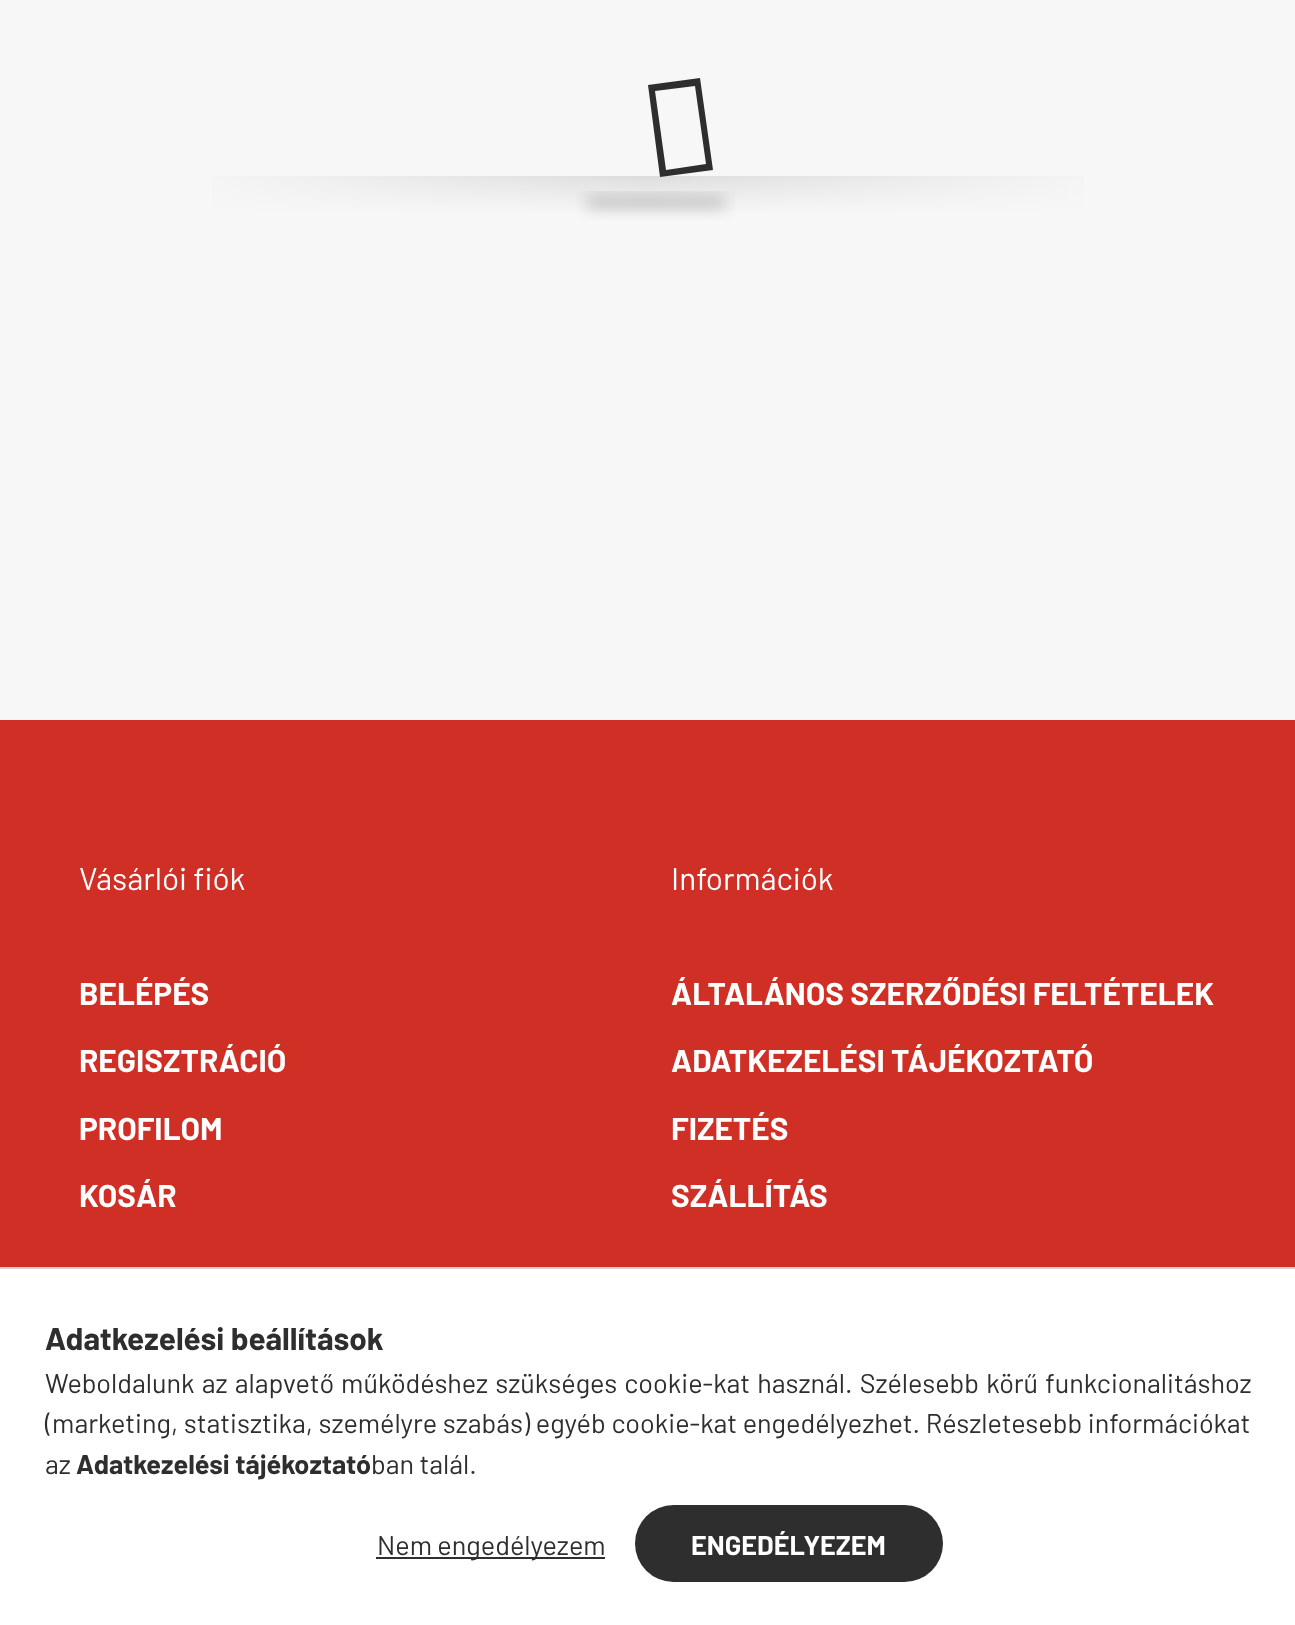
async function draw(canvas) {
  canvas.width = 1295
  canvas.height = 1625
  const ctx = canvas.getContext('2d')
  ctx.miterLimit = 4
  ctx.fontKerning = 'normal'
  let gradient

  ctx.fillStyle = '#f7f7f7'
  ctx.fillRect(0, 0, 1295, 1625)
  gradient = ctx.createLinearGradient(45, 195, 1251, 195)
  gradient.addColorStop(0.1, '#f7f7f7')
  gradient.addColorStop(0.5, '#ddd')
  gradient.addColorStop(0.9, '#f7f7f7')
  ctx.fillStyle = gradient
  ctx.fillRect(212, 176, 872, 38)
  gradient = ctx.createLinearGradient(648, 214, 648, 176)
  gradient.addColorStop(0, '#f7f7f7')
  gradient.addColorStop(1, '#f7f7f700')
  ctx.fillStyle = gradient
  ctx.fillRect(212, 179, 872, 35)
  ctx.save()
  ctx.beginPath()
  ctx.rect(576, 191, 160, 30)
  ctx.clip()
  ctx.fillStyle = '#808080'
  ctx.filter = 'blur(8px)'
  ctx.beginPath()
  ctx.rect(587, 200, 138, 5)
  ctx.fill()
  ctx.filter = 'none'
  ctx.restore()
  ctx.fillStyle = '#2e2e2e'
  ctx.beginPath()
  ctx.moveTo(700, 78)
  ctx.lineTo(713, 170)
  ctx.lineTo(660, 177)
  ctx.lineTo(648, 85)
  ctx.closePath()
  ctx.moveTo(695, 86)
  ctx.lineTo(655, 91)
  ctx.lineTo(666, 170)
  ctx.lineTo(706, 164)
  ctx.closePath()
  ctx.fill()
  ctx.fillStyle = '#d02f26'
  ctx.fillRect(0, 720, 1295, 547)
  ctx.font = '31.5px Barlow'
  ctx.fillStyle = '#fff'
  ctx.fillText('Vásárlói fiók', 79, 890)
  ctx.font = 'bold 31.5px Barlow'
  ctx.fillText('BELÉPÉS', 79, 1005)
  ctx.fillText('REGISZTRÁCIÓ', 79, 1072)
  ctx.fillText('PROFILOM', 79, 1140)
  ctx.fillText('KOSÁR', 79, 1207)
  ctx.font = '31.5px Barlow'
  ctx.fillText('Információk', 671, 890)
  ctx.font = 'bold 31.5px Barlow'
  ctx.fillText('ÁLTALÁNOS SZERZŐDÉSI FELTÉTELEK', 671, 1005)
  ctx.fillText('ADATKEZELÉSI TÁJÉKOZTATÓ', 671, 1072)
  ctx.fillText('FIZETÉS', 671, 1140)
  ctx.fillText('SZÁLLÍTÁS', 671, 1207)
  ctx.fillRect(0, 1269, 1295, 356)
  ctx.fillStyle = '#d1d1d1'
  ctx.fillRect(0, 1267, 1295, 2)
  ctx.fillStyle = '#2e2e2e'
  ctx.fillText('Adatkezelési beállítások', 45, 1350)
  ctx.wordSpacing = '1.75px'
  ctx.font = '27px Barlow'
  ctx.fillText('Weboldalunk az alapvető működéshez szükséges cookie-kat használ. Szélesebb körű funkcionalitáshoz', 45, 1393)
  ctx.wordSpacing = '0.25px'
  ctx.fillText('(marketing, statisztika, személyre szabás) egyéb cookie-kat engedélyezhet. Részletesebb információkat', 45, 1433)
  ctx.wordSpacing = '0px'
  ctx.fillText('az', 45, 1474)
  ctx.font = 'bold 27px Barlow'
  ctx.fillText('Adatkezelési tájékoztató', 76, 1474)
  ctx.font = '27px Barlow'
  ctx.fillText('ban talál.', 371, 1474)
  ctx.fillRect(376, 1557, 229, 2)
  ctx.fillText('Nem engedélyezem', 377, 1555)
  gradient = ctx.createLinearGradient(635, 1544, 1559, 1544)
  gradient.addColorStop(0.33, '#2e2e2e')
  gradient.addColorStop(0.67, '#fa6469')
  ctx.fillStyle = gradient
  ctx.beginPath()
  ctx.roundRect(635, 1505, 308, 77, 38.5)
  ctx.fill()
  ctx.font = 'bold 27px Barlow'
  ctx.fillStyle = '#fff'
  ctx.fillText('ENGEDÉLYEZEM', 691, 1555)
}

draw(document.querySelector('canvas'))
